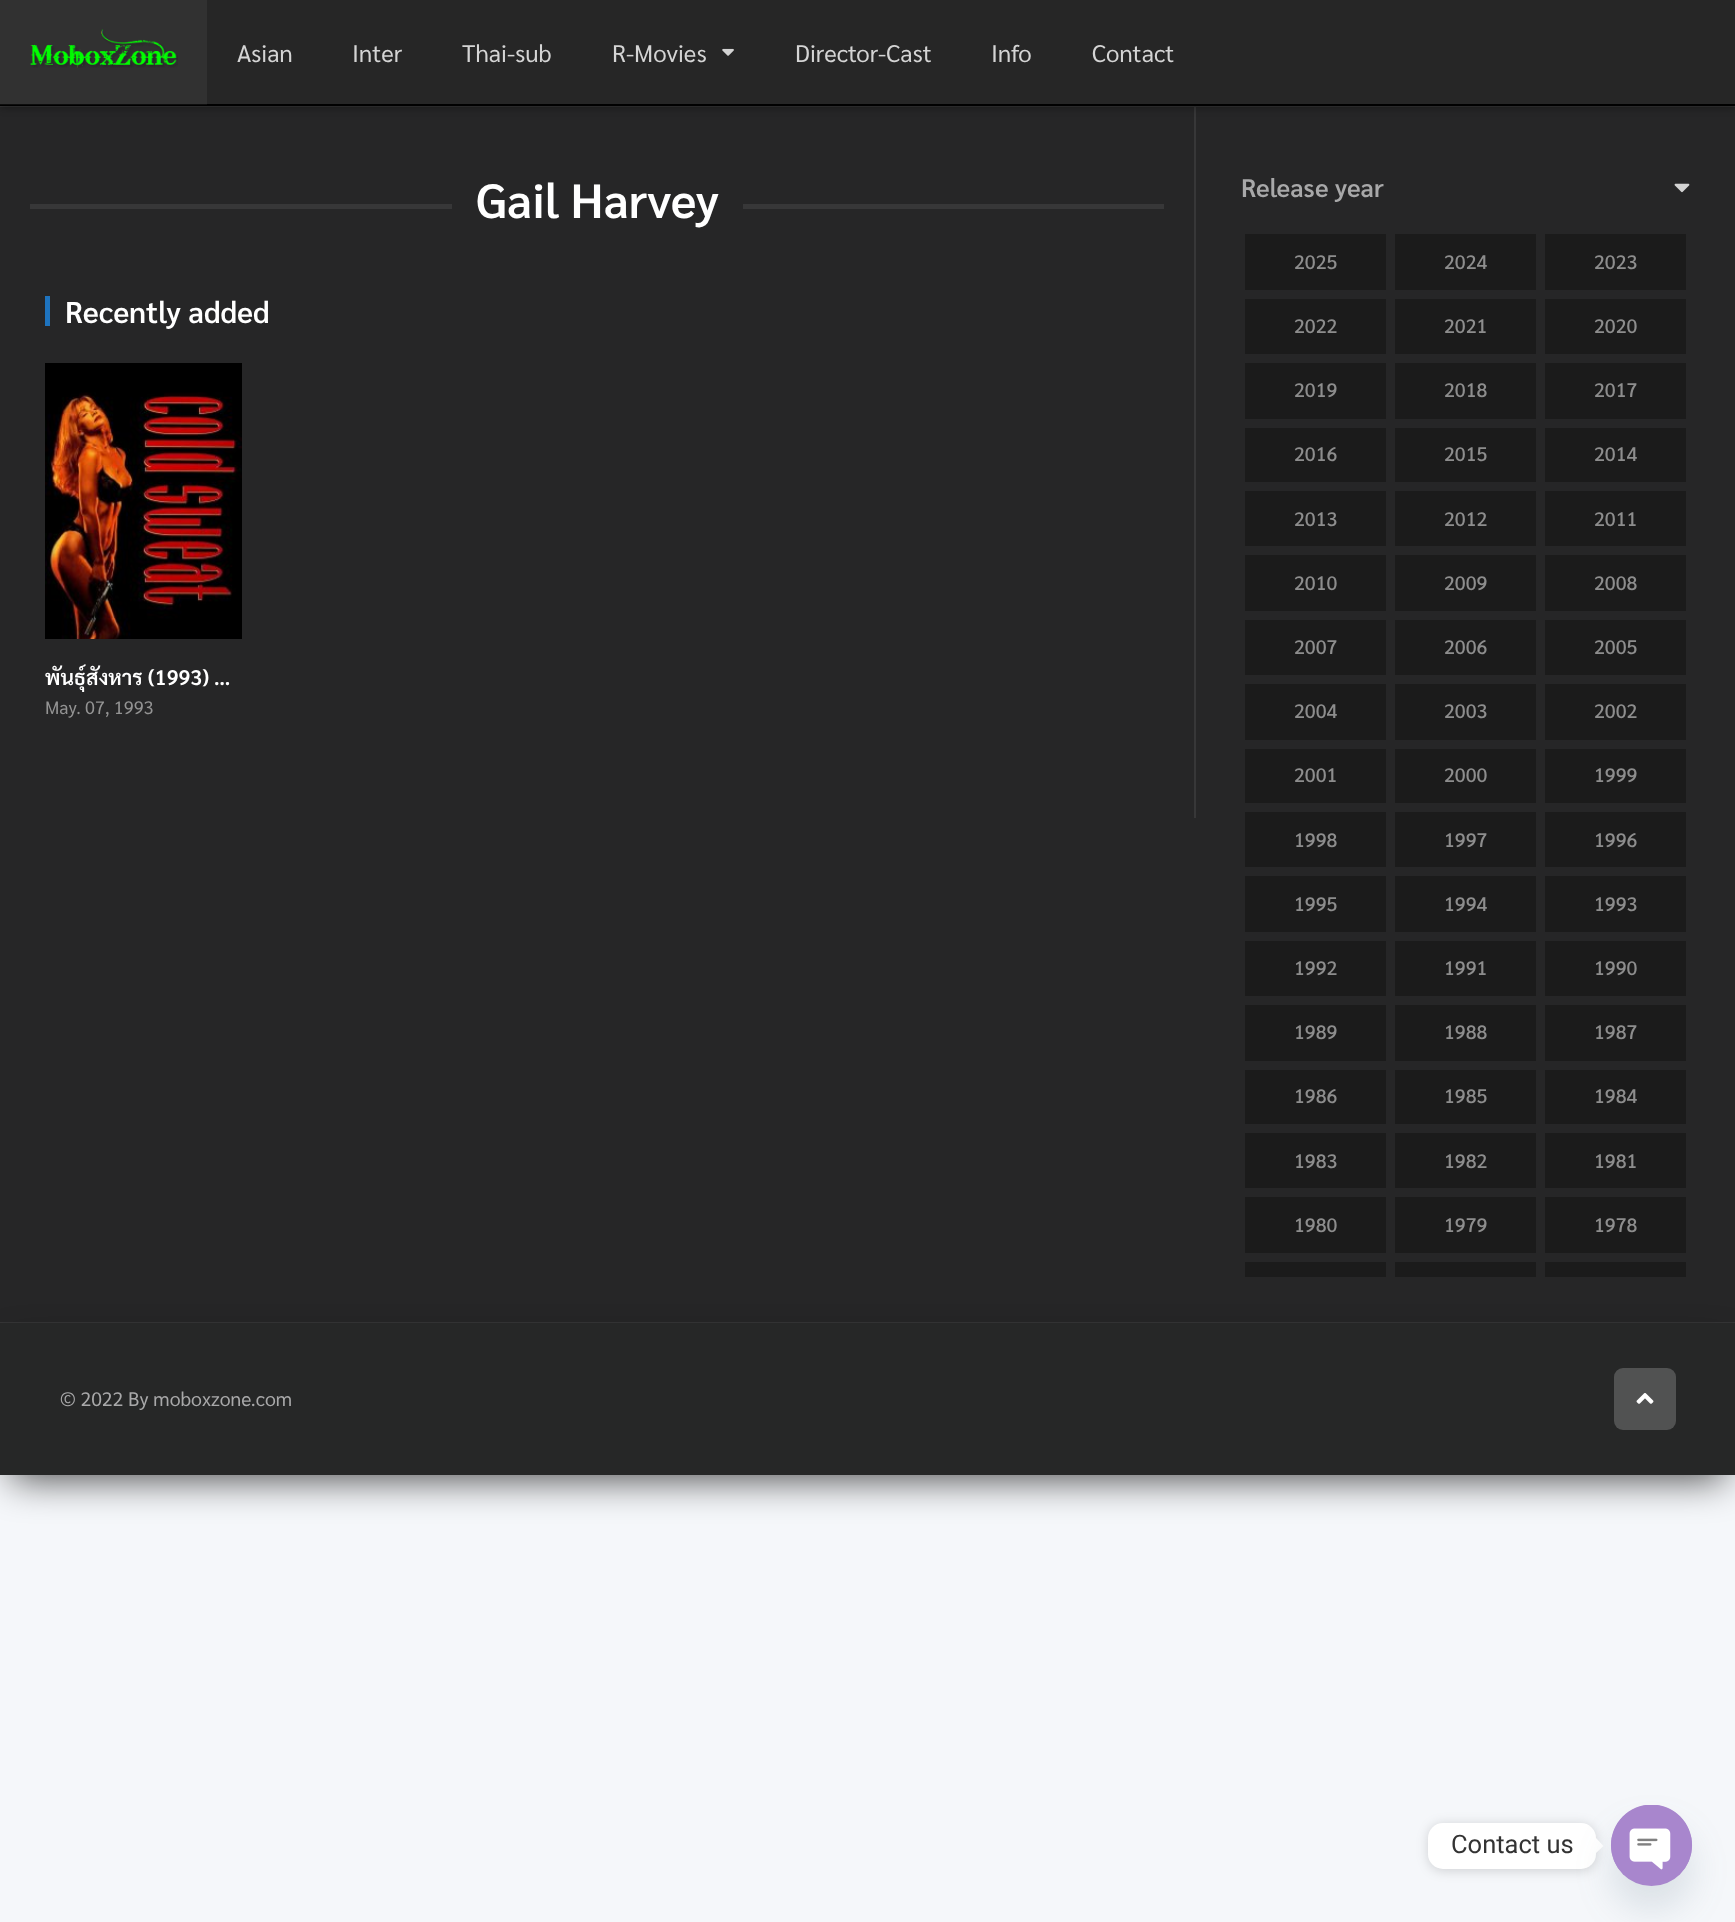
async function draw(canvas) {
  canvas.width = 1735
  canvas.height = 1922
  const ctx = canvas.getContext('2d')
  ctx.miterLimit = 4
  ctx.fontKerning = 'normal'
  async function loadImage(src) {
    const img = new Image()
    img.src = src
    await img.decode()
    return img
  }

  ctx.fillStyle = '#f5f7fa'
  ctx.fillRect(0, 0, 1735, 1922)
  ctx.fillStyle = '#262627'
  ctx.fillRect(0, 107, 1735, 1215)
  ctx.fillStyle = '#353536'
  ctx.fillRect(0, 106, 1735, 1)
  ctx.fillStyle = '#373738'
  ctx.fillRect(1194, 107, 2, 711)
  ctx.fillStyle = '#00000066'
  ctx.filter = 'blur(4px)'
  ctx.beginPath()
  ctx.rect(0, 2, 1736, 105)
  ctx.fill()
  ctx.filter = 'none'
  ctx.fillStyle = '#262626'
  ctx.fillRect(207, 0, 1528, 104)
  ctx.fillStyle = '#313131'
  ctx.fillRect(0, 0, 207, 104)
  ctx.fillStyle = '#000'
  ctx.fillRect(0, 104, 1735, 2)
  ctx.fillStyle = '#0d0d0d'
  ctx.fillRect(0, 104, 207, 1)
  ctx.drawImage(await loadImage('image0.png'), 30, 29, 148, 39)
  ctx.font = '24px Sarabun'
  ctx.fillStyle = '#d4d4d4'
  ctx.fillText('Asian', 237, 62)
  ctx.fillText('Inter', 352, 62)
  ctx.fillText('Thai-sub', 462, 62)
  ctx.fillText('R-Movies', 612, 62)
  ctx.drawImage(await loadImage('image1.png'), 722, 48, 12, 8)
  ctx.fillText('Director-Cast', 795, 62)
  ctx.fillText('Info', 991, 62)
  ctx.fillText('Contact', 1092, 62)
  ctx.fillStyle = '#353536'
  ctx.fillRect(0, 1322, 1735, 1)
  ctx.fillStyle = '#373738'
  ctx.fillRect(30, 204, 422, 5)
  ctx.font = '600 48px Sarabun'
  ctx.fillStyle = '#fff'
  ctx.fillText('Gail Harvey', 476, 218)
  ctx.fillStyle = '#373738'
  ctx.fillRect(743, 204, 421, 5)
  ctx.fillStyle = '#1e73be'
  ctx.fillRect(45, 296, 5, 30)
  ctx.font = '600 30px Sarabun'
  ctx.fillStyle = '#fff'
  ctx.fillText('Recently added', 65, 323)
  ctx.fillStyle = '#000'
  ctx.fillRect(45, 363, 197, 29)
  ctx.drawImage(await loadImage('image2.png'), 45, 392, 197, 247)
  ctx.save()
  ctx.beginPath()
  ctx.rect(45, 662, 197, 30)
  ctx.clip()
  ctx.font = '600 21px Sarabun'
  ctx.fillStyle = '#fff'
  ctx.fillText('พันธุ์สังหาร (1993) …', 45, 685)
  ctx.restore()
  ctx.font = '18px Sarabun'
  ctx.fillStyle = '#939393'
  ctx.fillText('May. 07, 1993', 45, 714)
  ctx.font = '600 25.5px Sarabun'
  ctx.fillStyle = '#a8a8a9'
  ctx.fillText('Release year', 1241, 197)
  ctx.drawImage(await loadImage('image3.png'), 1674, 183, 16, 10)
  ctx.fillStyle = '#1b1b1b'
  ctx.fillRect(1245, 234, 141, 56)
  ctx.font = '500 19.5px Sarabun'
  ctx.fillStyle = '#8d8d8d'
  ctx.fillText('2025', 1294, 269)
  ctx.fillStyle = '#1b1b1b'
  ctx.fillRect(1395, 234, 141, 56)
  ctx.fillStyle = '#8d8d8d'
  ctx.fillText('2024', 1444, 269)
  ctx.fillStyle = '#1b1b1b'
  ctx.fillRect(1545, 234, 141, 56)
  ctx.fillStyle = '#8d8d8d'
  ctx.fillText('2023', 1594, 269)
  ctx.fillStyle = '#1b1b1b'
  ctx.fillRect(1245, 299, 141, 55)
  ctx.fillStyle = '#8d8d8d'
  ctx.fillText('2022', 1294, 333)
  ctx.fillStyle = '#1b1b1b'
  ctx.fillRect(1395, 299, 141, 55)
  ctx.fillStyle = '#8d8d8d'
  ctx.fillText('2021', 1444, 333)
  ctx.fillStyle = '#1b1b1b'
  ctx.fillRect(1545, 299, 141, 55)
  ctx.fillStyle = '#8d8d8d'
  ctx.fillText('2020', 1594, 333)
  ctx.fillStyle = '#1b1b1b'
  ctx.fillRect(1245, 363, 141, 56)
  ctx.fillStyle = '#8d8d8d'
  ctx.fillText('2019', 1294, 397)
  ctx.fillStyle = '#1b1b1b'
  ctx.fillRect(1395, 363, 141, 56)
  ctx.fillStyle = '#8d8d8d'
  ctx.fillText('2018', 1444, 397)
  ctx.fillStyle = '#1b1b1b'
  ctx.fillRect(1545, 363, 141, 56)
  ctx.fillStyle = '#8d8d8d'
  ctx.fillText('2017', 1594, 397)
  ctx.fillStyle = '#1b1b1b'
  ctx.fillRect(1245, 428, 141, 54)
  ctx.fillStyle = '#8d8d8d'
  ctx.fillText('2016', 1294, 461)
  ctx.fillStyle = '#1b1b1b'
  ctx.fillRect(1395, 428, 141, 54)
  ctx.fillStyle = '#8d8d8d'
  ctx.fillText('2015', 1444, 461)
  ctx.fillStyle = '#1b1b1b'
  ctx.fillRect(1545, 428, 141, 54)
  ctx.fillStyle = '#8d8d8d'
  ctx.fillText('2014', 1594, 461)
  ctx.fillStyle = '#1b1b1b'
  ctx.fillRect(1245, 491, 141, 55)
  ctx.fillStyle = '#8d8d8d'
  ctx.fillText('2013', 1294, 526)
  ctx.fillStyle = '#1b1b1b'
  ctx.fillRect(1395, 491, 141, 55)
  ctx.fillStyle = '#8d8d8d'
  ctx.fillText('2012', 1444, 526)
  ctx.fillStyle = '#1b1b1b'
  ctx.fillRect(1545, 491, 141, 55)
  ctx.fillStyle = '#8d8d8d'
  ctx.fillText('2011', 1594, 526)
  ctx.fillStyle = '#1b1b1b'
  ctx.fillRect(1245, 555, 141, 56)
  ctx.fillStyle = '#8d8d8d'
  ctx.fillText('2010', 1294, 590)
  ctx.fillStyle = '#1b1b1b'
  ctx.fillRect(1395, 555, 141, 56)
  ctx.fillStyle = '#8d8d8d'
  ctx.fillText('2009', 1444, 590)
  ctx.fillStyle = '#1b1b1b'
  ctx.fillRect(1545, 555, 141, 56)
  ctx.fillStyle = '#8d8d8d'
  ctx.fillText('2008', 1594, 590)
  ctx.fillStyle = '#1b1b1b'
  ctx.fillRect(1245, 620, 141, 55)
  ctx.fillStyle = '#8d8d8d'
  ctx.fillText('2007', 1294, 654)
  ctx.fillStyle = '#1b1b1b'
  ctx.fillRect(1395, 620, 141, 55)
  ctx.fillStyle = '#8d8d8d'
  ctx.fillText('2006', 1444, 654)
  ctx.fillStyle = '#1b1b1b'
  ctx.fillRect(1545, 620, 141, 55)
  ctx.fillStyle = '#8d8d8d'
  ctx.fillText('2005', 1594, 654)
  ctx.fillStyle = '#1b1b1b'
  ctx.fillRect(1245, 684, 141, 56)
  ctx.fillStyle = '#8d8d8d'
  ctx.fillText('2004', 1294, 718)
  ctx.fillStyle = '#1b1b1b'
  ctx.fillRect(1395, 684, 141, 56)
  ctx.fillStyle = '#8d8d8d'
  ctx.fillText('2003', 1444, 718)
  ctx.fillStyle = '#1b1b1b'
  ctx.fillRect(1545, 684, 141, 56)
  ctx.fillStyle = '#8d8d8d'
  ctx.fillText('2002', 1594, 718)
  ctx.fillStyle = '#1b1b1b'
  ctx.fillRect(1245, 749, 141, 54)
  ctx.fillStyle = '#8d8d8d'
  ctx.fillText('2001', 1294, 782)
  ctx.fillStyle = '#1b1b1b'
  ctx.fillRect(1395, 749, 141, 54)
  ctx.fillStyle = '#8d8d8d'
  ctx.fillText('2000', 1444, 782)
  ctx.fillStyle = '#1b1b1b'
  ctx.fillRect(1545, 749, 141, 54)
  ctx.fillStyle = '#8d8d8d'
  ctx.fillText('1999', 1594, 782)
  ctx.fillStyle = '#1b1b1b'
  ctx.fillRect(1245, 812, 141, 55)
  ctx.fillStyle = '#8d8d8d'
  ctx.fillText('1998', 1294, 847)
  ctx.fillStyle = '#1b1b1b'
  ctx.fillRect(1395, 812, 141, 55)
  ctx.fillStyle = '#8d8d8d'
  ctx.fillText('1997', 1444, 847)
  ctx.fillStyle = '#1b1b1b'
  ctx.fillRect(1545, 812, 141, 55)
  ctx.fillStyle = '#8d8d8d'
  ctx.fillText('1996', 1594, 847)
  ctx.fillStyle = '#1b1b1b'
  ctx.fillRect(1245, 876, 141, 56)
  ctx.fillStyle = '#8d8d8d'
  ctx.fillText('1995', 1294, 911)
  ctx.fillStyle = '#1b1b1b'
  ctx.fillRect(1395, 876, 141, 56)
  ctx.fillStyle = '#8d8d8d'
  ctx.fillText('1994', 1444, 911)
  ctx.fillStyle = '#1b1b1b'
  ctx.fillRect(1545, 876, 141, 56)
  ctx.fillStyle = '#8d8d8d'
  ctx.fillText('1993', 1594, 911)
  ctx.fillStyle = '#1b1b1b'
  ctx.fillRect(1245, 941, 141, 55)
  ctx.fillStyle = '#8d8d8d'
  ctx.fillText('1992', 1294, 975)
  ctx.fillStyle = '#1b1b1b'
  ctx.fillRect(1395, 941, 141, 55)
  ctx.fillStyle = '#8d8d8d'
  ctx.fillText('1991', 1444, 975)
  ctx.fillStyle = '#1b1b1b'
  ctx.fillRect(1545, 941, 141, 55)
  ctx.fillStyle = '#8d8d8d'
  ctx.fillText('1990', 1594, 975)
  ctx.fillStyle = '#1b1b1b'
  ctx.fillRect(1245, 1005, 141, 56)
  ctx.fillStyle = '#8d8d8d'
  ctx.fillText('1989', 1294, 1039)
  ctx.fillStyle = '#1b1b1b'
  ctx.fillRect(1395, 1005, 141, 56)
  ctx.fillStyle = '#8d8d8d'
  ctx.fillText('1988', 1444, 1039)
  ctx.fillStyle = '#1b1b1b'
  ctx.fillRect(1545, 1005, 141, 56)
  ctx.fillStyle = '#8d8d8d'
  ctx.fillText('1987', 1594, 1039)
  ctx.fillStyle = '#1b1b1b'
  ctx.fillRect(1245, 1070, 141, 54)
  ctx.fillStyle = '#8d8d8d'
  ctx.fillText('1986', 1294, 1103)
  ctx.fillStyle = '#1b1b1b'
  ctx.fillRect(1395, 1070, 141, 54)
  ctx.fillStyle = '#8d8d8d'
  ctx.fillText('1985', 1444, 1103)
  ctx.fillStyle = '#1b1b1b'
  ctx.fillRect(1545, 1070, 141, 54)
  ctx.fillStyle = '#8d8d8d'
  ctx.fillText('1984', 1594, 1103)
  ctx.fillStyle = '#1b1b1b'
  ctx.fillRect(1245, 1133, 141, 55)
  ctx.fillStyle = '#8d8d8d'
  ctx.fillText('1983', 1294, 1168)
  ctx.fillStyle = '#1b1b1b'
  ctx.fillRect(1395, 1133, 141, 55)
  ctx.fillStyle = '#8d8d8d'
  ctx.fillText('1982', 1444, 1168)
  ctx.fillStyle = '#1b1b1b'
  ctx.fillRect(1545, 1133, 141, 55)
  ctx.fillStyle = '#8d8d8d'
  ctx.fillText('1981', 1594, 1168)
  ctx.fillStyle = '#1b1b1b'
  ctx.fillRect(1245, 1197, 141, 56)
  ctx.fillStyle = '#8d8d8d'
  ctx.fillText('1980', 1294, 1232)
  ctx.fillStyle = '#1b1b1b'
  ctx.fillRect(1395, 1197, 141, 56)
  ctx.fillStyle = '#8d8d8d'
  ctx.fillText('1979', 1444, 1232)
  ctx.fillStyle = '#1b1b1b'
  ctx.fillRect(1545, 1197, 141, 56)
  ctx.fillStyle = '#8d8d8d'
  ctx.fillText('1978', 1594, 1232)
  ctx.fillStyle = '#1b1b1b'
  ctx.fillRect(1245, 1262, 141, 15)
  ctx.fillRect(1395, 1262, 141, 15)
  ctx.fillRect(1545, 1262, 141, 15)
  ctx.save()
  ctx.beginPath()
  ctx.moveTo(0, 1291)
  ctx.lineTo(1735, 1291)
  ctx.lineTo(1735, 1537)
  ctx.lineTo(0, 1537)
  ctx.closePath()
  ctx.moveTo(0, 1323)
  ctx.lineTo(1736, 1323)
  ctx.lineTo(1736, 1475)
  ctx.lineTo(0, 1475)
  ctx.closePath()
  ctx.clip('evenodd')
  ctx.fillStyle = '#000000b3'
  ctx.filter = 'blur(19px)'
  ctx.beginPath()
  ctx.rect(11, 1349, 1714, 130)
  ctx.fill()
  ctx.filter = 'none'
  ctx.restore()
  ctx.fillStyle = '#0f0f0fe6'
  ctx.fillRect(0, 1323, 1735, 152)
  ctx.font = '19.5px Sarabun'
  ctx.fillStyle = '#a8a8a9'
  ctx.fillText('© 2022 By moboxzone.com', 60, 1406)
  ctx.fillStyle = '#515252'
  ctx.beginPath()
  ctx.roundRect(1614, 1368, 62, 62, 9)
  ctx.fill()
  ctx.drawImage(await loadImage('image4.png'), 1636, 1393, 18, 11)
  ctx.fillStyle = '#00000026'
  ctx.filter = 'blur(6px)'
  ctx.beginPath()
  ctx.roundRect(1428, 1824, 168, 47, 15)
  ctx.fill()
  ctx.filter = 'none'
  ctx.fillStyle = '#fff'
  ctx.beginPath()
  ctx.roundRect(1428, 1823, 168, 46, 15)
  ctx.fill()
  ctx.font = '25.5px Roboto'
  ctx.fillStyle = '#333'
  ctx.fillText('Contact us', 1451, 1853)
  ctx.fillStyle = '#fff'
  ctx.beginPath()
  ctx.moveTo(1596, 1853)
  ctx.lineTo(1596, 1838)
  ctx.lineTo(1603.5, 1846)
  ctx.closePath()
  ctx.fill()
  ctx.fillStyle = '#49687e29'
  ctx.filter = 'blur(18px)'
  ctx.beginPath()
  ctx.roundRect(1611, 1829, 81, 81, 40.5)
  ctx.fill()
  ctx.filter = 'none'
  ctx.fillStyle = '#a886cd'
  ctx.beginPath()
  ctx.arc(1651.5, 1845.5, 40.5, 0, 2 * Math.PI)
  ctx.fill()
  ctx.drawImage(await loadImage('image5.png'), 1611, 1805, 81, 65)
}

draw(document.querySelector('canvas'))
